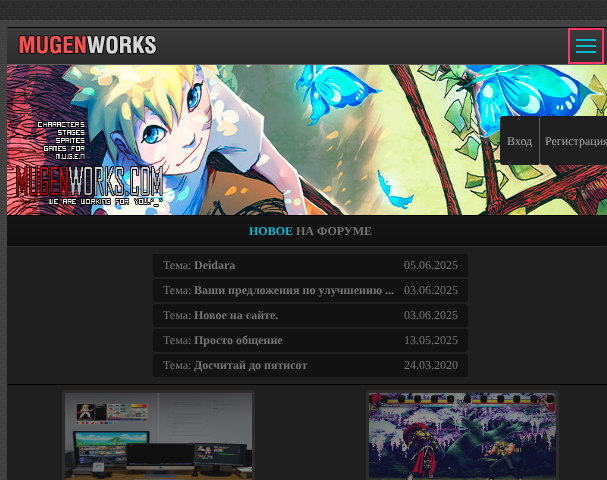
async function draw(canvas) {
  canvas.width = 607
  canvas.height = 480
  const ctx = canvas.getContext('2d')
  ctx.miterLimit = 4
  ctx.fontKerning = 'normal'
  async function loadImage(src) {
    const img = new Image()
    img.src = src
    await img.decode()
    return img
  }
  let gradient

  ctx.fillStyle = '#fff'
  ctx.fillRect(0, 0, 607, 480)
  ctx.drawImage(await loadImage('image0.png'), 0, 0, 607, 480)
  gradient = ctx.createLinearGradient(311, 28, 311, 64)
  gradient.addColorStop(0, '#3b3b3b')
  gradient.addColorStop(1, '#2c2c2c')
  ctx.fillStyle = gradient
  ctx.fillRect(7, 28, 600, 36)
  ctx.fillStyle = '#000'
  ctx.fillRect(7, 27, 600, 1)
  ctx.fillStyle = '#5d5d5d'
  ctx.fillRect(7, 64, 600, 1)
  ctx.drawImage(await loadImage('image1.png'), 18, 35, 139, 20)
  ctx.strokeStyle = '#f36'
  ctx.lineWidth = 2
  ctx.strokeRect(569, 29, 34, 34)
  ctx.fillStyle = '#00bcd4'
  ctx.fillRect(576, 39, 20, 2)
  ctx.fillRect(576, 45, 20, 2)
  ctx.fillRect(576, 51, 20, 2)
  ctx.fillStyle = '#1f1f1f'
  ctx.fillRect(7, 247, 600, 233)
  ctx.drawImage(await loadImage('image2.png'), 7, 65, 600, 150)
  ctx.beginPath()
  ctx.roundRect(500, 116, 40, 49, 3)
  ctx.fill()
  ctx.fillStyle = '#5d5d5d'
  ctx.fillRect(539, 118, 1, 46)
  ctx.font = '12px Liberation Serif'
  ctx.fillStyle = '#a5a5a5'
  ctx.fillText('Вход', 507, 145)
  ctx.fillStyle = '#1f1f1f'
  ctx.beginPath()
  ctx.roundRect(540, 116, 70, 49, 3)
  ctx.fill()
  ctx.fillStyle = '#a5a5a5'
  ctx.fillText('Регистрация', 545, 145)
  ctx.fillStyle = '#000'
  ctx.fillRect(7, 384, 600, 1)
  gradient = ctx.createLinearGradient(311, 216, 311, 246)
  gradient.addColorStop(0, '#151515')
  gradient.addColorStop(1, '#111')
  ctx.fillStyle = gradient
  ctx.fillRect(7, 216, 600, 30)
  ctx.fillStyle = '#000'
  ctx.fillRect(7, 215, 600, 1)
  ctx.fillStyle = '#2b2b2b'
  ctx.fillRect(7, 246, 600, 1)
  ctx.font = 'bold 12px Liberation Serif'
  ctx.fillStyle = '#00bcd4'
  ctx.fillText('НОВОЕ', 249, 235)
  ctx.fillStyle = '#757575'
  ctx.fillText('НА ФОРУМЕ', 296, 235)
  ctx.fillStyle = '#121212'
  ctx.beginPath()
  ctx.roundRect(153, 254, 315, 23, 3)
  ctx.fill()
  ctx.font = '12px Liberation Serif'
  ctx.fillStyle = '#757575'
  ctx.fillText('Тема:', 163, 269)
  ctx.font = 'bold 12px Liberation Serif'
  ctx.fillText('Deidara', 194, 269)
  ctx.font = '12px Liberation Serif'
  ctx.fillText('05.06.2025', 404, 269)
  ctx.fillStyle = '#121212'
  ctx.beginPath()
  ctx.roundRect(153, 279, 315, 23, 3)
  ctx.fill()
  ctx.fillStyle = '#757575'
  ctx.fillText('Тема:', 163, 294)
  ctx.font = 'bold 12px Liberation Serif'
  ctx.fillText('Ваши предложения по улучшению ...', 194, 294)
  ctx.font = '12px Liberation Serif'
  ctx.fillText('03.06.2025', 404, 294)
  ctx.fillStyle = '#121212'
  ctx.beginPath()
  ctx.roundRect(153, 304, 315, 23, 3)
  ctx.fill()
  ctx.fillStyle = '#757575'
  ctx.fillText('Тема:', 163, 319)
  ctx.font = 'bold 12px Liberation Serif'
  ctx.fillText('Новое на сайте.', 194, 319)
  ctx.font = '12px Liberation Serif'
  ctx.fillText('03.06.2025', 404, 319)
  ctx.fillStyle = '#121212'
  ctx.beginPath()
  ctx.roundRect(153, 329, 315, 23, 3)
  ctx.fill()
  ctx.fillStyle = '#757575'
  ctx.fillText('Тема:', 163, 344)
  ctx.font = 'bold 12px Liberation Serif'
  ctx.fillText('Просто общение', 194, 344)
  ctx.font = '12px Liberation Serif'
  ctx.fillText('13.05.2025', 404, 344)
  ctx.fillStyle = '#121212'
  ctx.beginPath()
  ctx.roundRect(153, 354, 315, 23, 3)
  ctx.fill()
  ctx.fillStyle = '#757575'
  ctx.fillText('Тема:', 163, 369)
  ctx.font = 'bold 12px Liberation Serif'
  ctx.fillText('Досчитай до пятисот', 194, 369)
  ctx.font = '12px Liberation Serif'
  ctx.fillText('24.03.2020', 404, 369)
  ctx.drawImage(await loadImage('image3.png'), 62, 390, 193, 90)
  ctx.drawImage(await loadImage('image4.png'), 65, 393, 187, 87)
  ctx.fillStyle = '#00000040'
  ctx.fillRect(65, 471, 187, 9)
  ctx.drawImage(await loadImage('image3.png'), 366, 390, 193, 90)
  ctx.drawImage(await loadImage('image5.png'), 369, 393, 187, 87)
}

draw(document.querySelector('canvas'))
